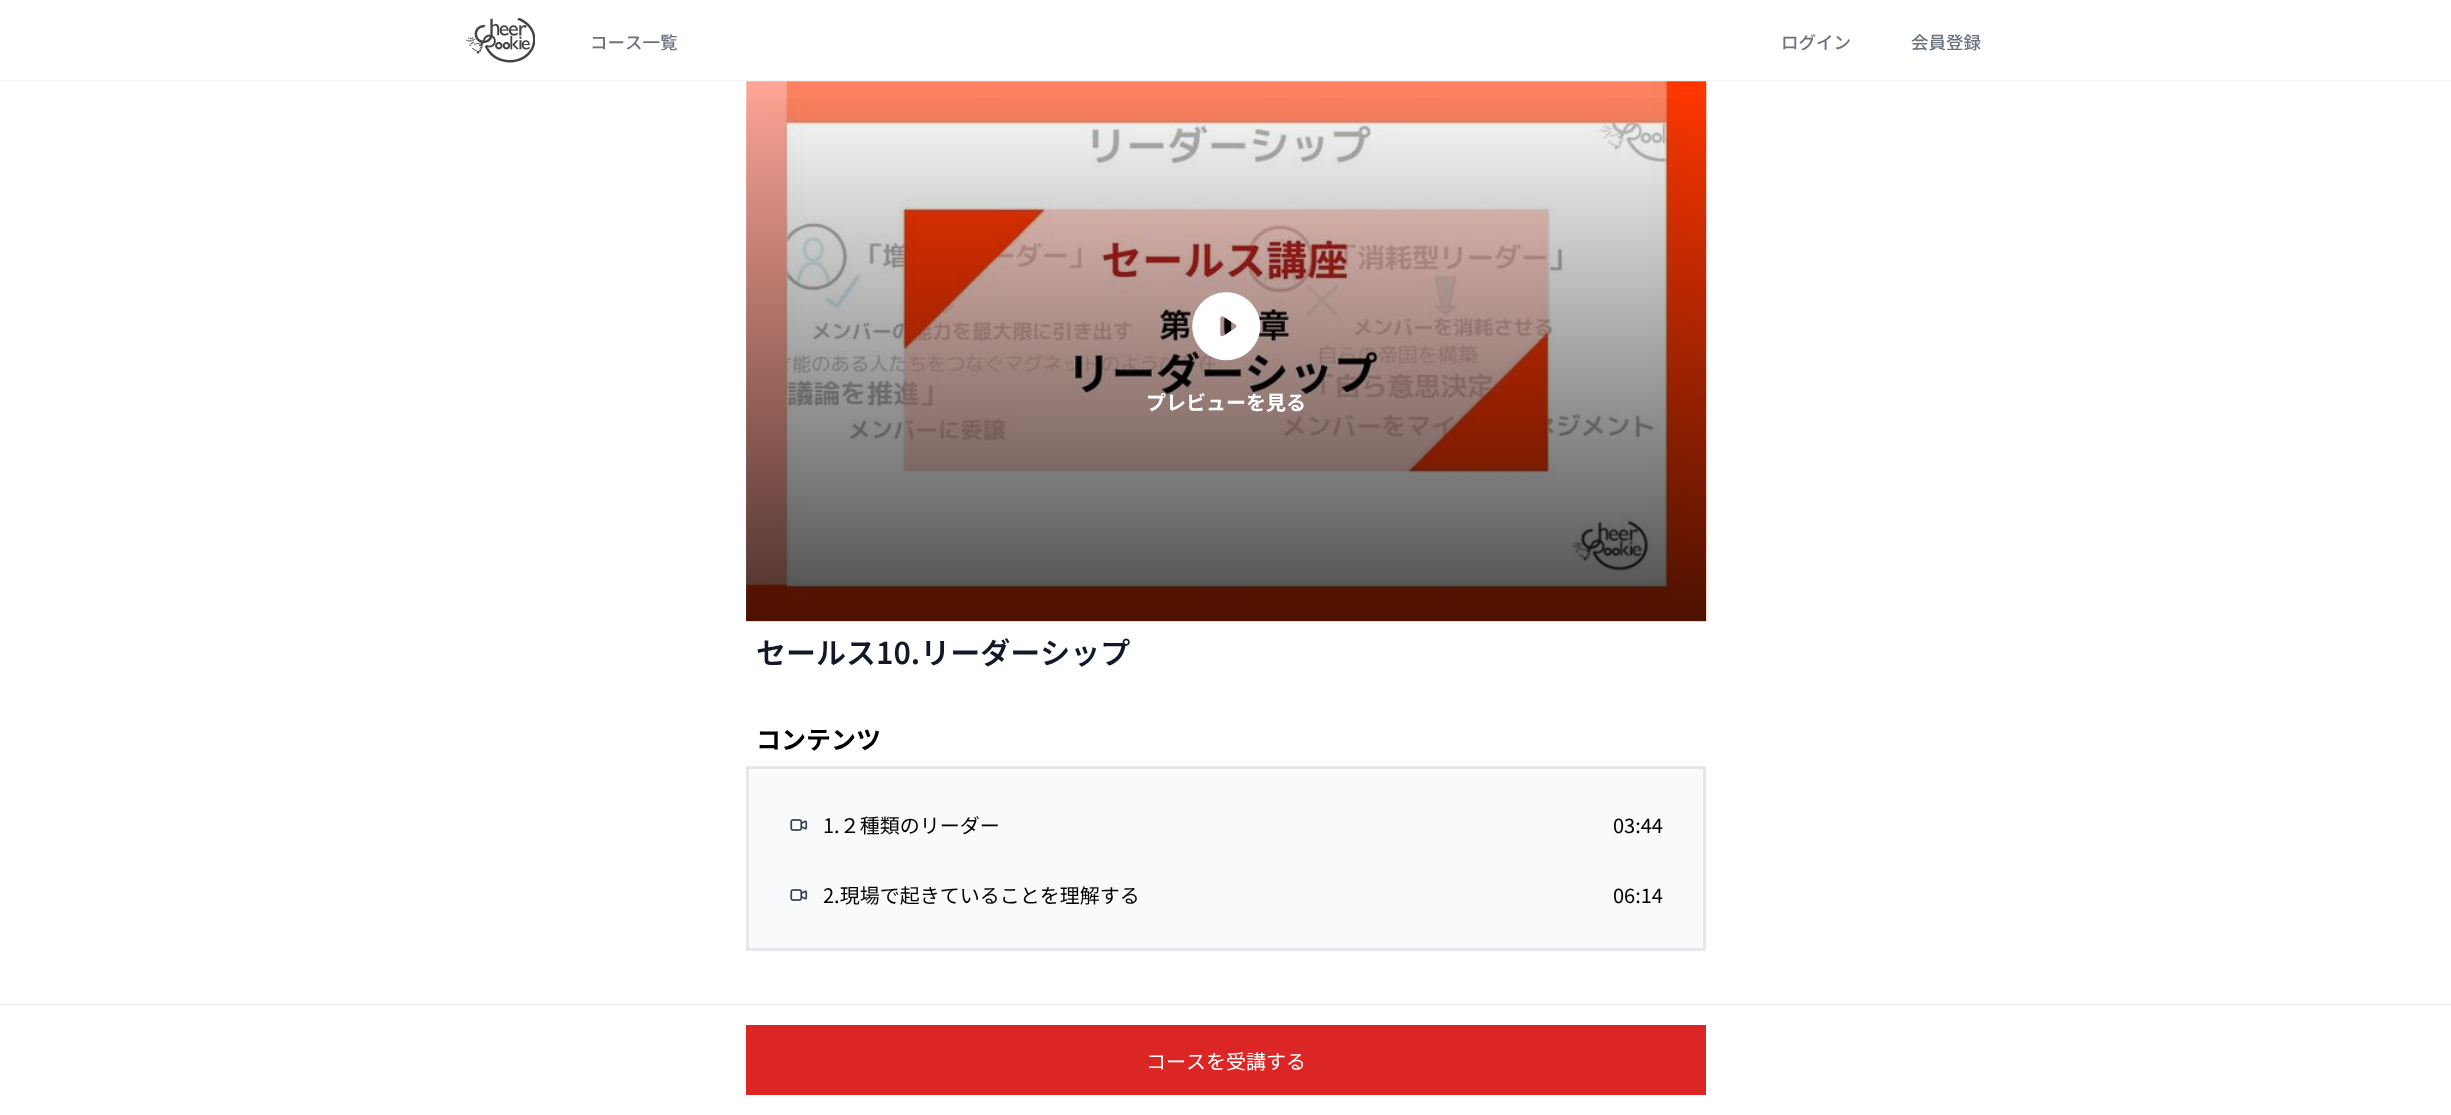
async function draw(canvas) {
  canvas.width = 2451
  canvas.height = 1115
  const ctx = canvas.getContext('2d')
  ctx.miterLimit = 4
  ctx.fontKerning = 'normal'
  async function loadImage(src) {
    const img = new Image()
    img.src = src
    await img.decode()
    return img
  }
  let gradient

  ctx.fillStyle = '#fff'
  ctx.fillRect(0, 0, 2451, 1115)
  ctx.fillStyle = '#f3f4f6'
  ctx.fillRect(0, 80, 2451, 1)
  ctx.drawImage(await loadImage('image0.png'), 466, 18, 69, 45)
  ctx.font = '500 17.5px Noto Sans JP'
  ctx.fillStyle = '#6b7280'
  ctx.fillText('コース一覧', 590, 49)
  ctx.fillText('ログイン', 1781, 49)
  ctx.fillText('会員登録', 1911, 49)
  ctx.drawImage(await loadImage('image1.png'), 746, 81, 961, 541)
  gradient = ctx.createLinearGradient(1226, 81, 1226, 621)
  gradient.addColorStop(0, '#00000000')
  gradient.addColorStop(1, '#000000b3')
  ctx.fillStyle = gradient
  ctx.fillRect(746, 98, 960, 523)
  ctx.drawImage(await loadImage('image2.png'), 1192, 292, 69, 69)
  ctx.font = 'bold 20px Noto Sans JP'
  ctx.fillStyle = '#fff'
  ctx.fillText('プレビューを見る', 1146, 410)
  ctx.font = '600 30px Noto Sans JP'
  ctx.fillStyle = '#111827'
  ctx.fillText('セールス10.リーダーシップ', 756, 664)
  ctx.font = 'bold 25px Noto Sans JP'
  ctx.fillStyle = '#000'
  ctx.fillText('コンテンツ', 756, 749)
  ctx.fillStyle = '#f9fafb'
  ctx.beginPath()
  ctx.rect(747.5, 767.5, 957, 182)
  ctx.fill()
  ctx.strokeStyle = '#e5e7eb'
  ctx.lineWidth = 3
  ctx.stroke()
  ctx.drawImage(await loadImage('image3.png'), 790, 819, 18, 12)
  ctx.font = '20px Noto Sans JP'
  ctx.fillStyle = '#000'
  ctx.fillText('1.２種類のリーダー', 823, 833)
  ctx.fillText('03:44', 1613, 833)
  ctx.drawImage(await loadImage('image3.png'), 790, 889, 18, 12)
  ctx.fillText('2.現場で起きていることを理解する', 823, 903)
  ctx.fillText('06:14', 1613, 903)
  ctx.fillStyle = '#e5e7eb'
  ctx.fillRect(0, 1004, 2451, 1)
  ctx.fillStyle = '#dc2626'
  ctx.fillRect(746, 1025, 960, 70)
  ctx.fillStyle = '#fff'
  ctx.fillText('コースを受講する', 1146, 1069)
}

draw(document.querySelector('canvas'))
